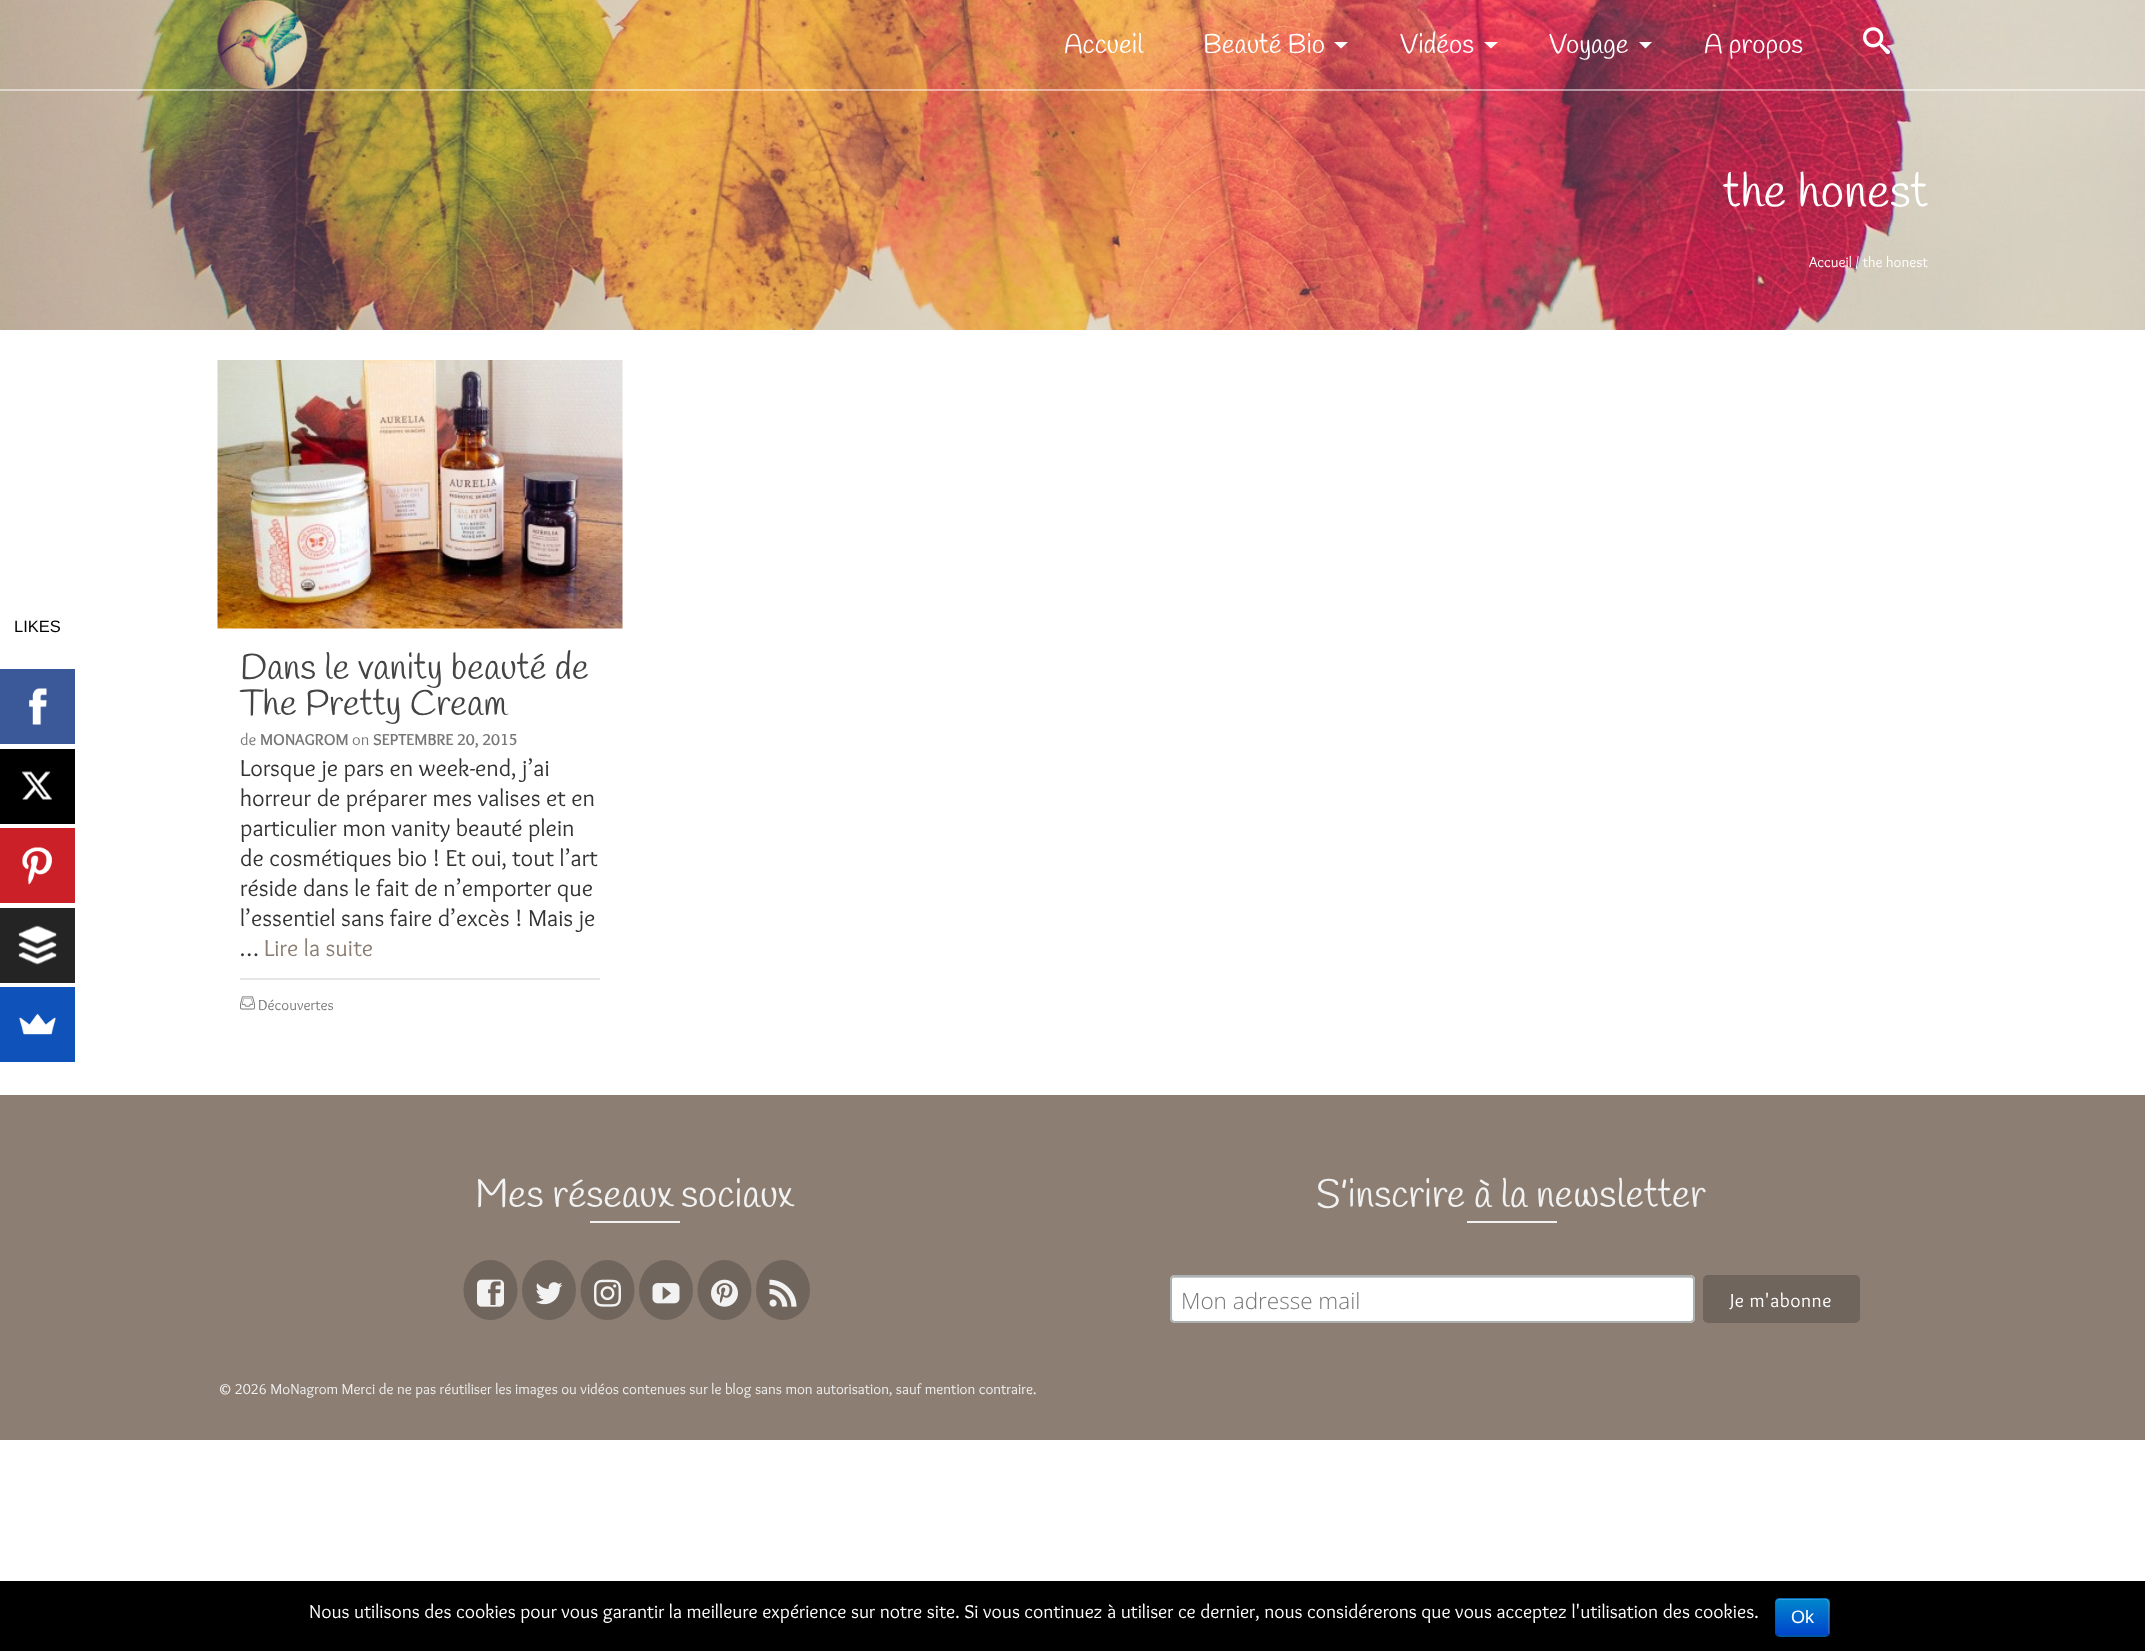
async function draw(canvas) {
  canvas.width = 2145
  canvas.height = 1651
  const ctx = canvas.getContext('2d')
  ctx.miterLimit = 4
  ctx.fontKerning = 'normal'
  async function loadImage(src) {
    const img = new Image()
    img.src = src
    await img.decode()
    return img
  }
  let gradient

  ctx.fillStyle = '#fff'
  ctx.fillRect(0, 0, 2145, 1651)
  ctx.font = '16.5px Liberation Sans'
  ctx.fillStyle = '#000'
  ctx.fillText('LIKES', 14, 632)
  ctx.fillStyle = '#3b5998'
  ctx.fillRect(0, 669, 75, 75)
  ctx.drawImage(await loadImage('image0.png'), 29, 688, 18, 37)
  ctx.fillStyle = '#000'
  ctx.fillRect(0, 749, 75, 75)
  ctx.drawImage(await loadImage('image1.png'), 21, 771, 31, 29)
  ctx.fillStyle = '#cb2027'
  ctx.fillRect(0, 828, 75, 75)
  ctx.drawImage(await loadImage('image2.png'), 22, 847, 30, 38)
  ctx.fillStyle = '#242424'
  ctx.fillRect(0, 908, 75, 75)
  ctx.drawImage(await loadImage('image3.png'), 18, 925, 39, 40)
  ctx.fillStyle = '#0f52ba'
  ctx.fillRect(0, 987, 75, 75)
  ctx.drawImage(await loadImage('image4.png'), 19, 1014, 37, 21)
  ctx.drawImage(await loadImage('image7.png'), 0, 0, 2145, 330)
  ctx.fillStyle = '#ffffff80'
  ctx.fillRect(0, 89, 2145, 2)
  ctx.drawImage(await loadImage('image5.png'), 217, 0, 91, 90)
  ctx.font = '27px Handlee'
  ctx.fillStyle = '#fff'
  ctx.fillText('Accueil', 1064, 53)
  ctx.fillText('Beauté Bio', 1203, 53)
  ctx.beginPath()
  ctx.moveTo(1334, 42)
  ctx.lineTo(1341, 48.5)
  ctx.lineTo(1348, 42)
  ctx.closePath()
  ctx.fill()
  ctx.fillText('Vidéos', 1400, 53)
  ctx.beginPath()
  ctx.moveTo(1484, 42)
  ctx.lineTo(1491, 48.5)
  ctx.lineTo(1498, 42)
  ctx.closePath()
  ctx.fill()
  ctx.fillText('Voyage', 1549, 53)
  ctx.beginPath()
  ctx.moveTo(1639, 42)
  ctx.lineTo(1645.5, 48.5)
  ctx.lineTo(1652, 42)
  ctx.closePath()
  ctx.fill()
  ctx.fillText('A propos', 1704, 53)
  ctx.drawImage(await loadImage('image6.png'), 1863, 27, 27, 28)
  ctx.font = '48px Handlee'
  ctx.fillText('the honest', 1723, 207)
  ctx.font = '15px Overlock'
  ctx.fillText('Accueil / the honest', 1809, 267)
  ctx.drawImage(await loadImage('image8.png'), 217, 360, 406, 269)
  ctx.font = '36px Handlee'
  ctx.fillStyle = '#444'
  ctx.fillText('Dans le vanity beauté de', 240, 679)
  ctx.fillText('The Pretty Cream', 240, 715)
  ctx.font = '16.5px Overlock'
  ctx.fillStyle = '#777'
  ctx.fillText('de', 240, 745)
  ctx.font = 'bold 16.5px Overlock'
  ctx.fillText('MONAGROM', 260, 745)
  ctx.font = '16.5px Overlock'
  ctx.fillText('on', 352, 745)
  ctx.font = 'bold 16.5px Overlock'
  ctx.fillText('SEPTEMBRE 20, 2015', 373, 745)
  ctx.font = '24px Overlock'
  ctx.fillStyle = '#333'
  ctx.fillText('Lorsque je pars en week-end, j’ai', 240, 776)
  ctx.fillText('horreur de préparer mes valises et en', 240, 806)
  ctx.fillText('particulier mon vanity beauté plein', 240, 836)
  ctx.fillText('de cosmétiques bio ! Et oui, tout l’art', 240, 866)
  ctx.fillText('réside dans le fait de n’emporter que', 240, 896)
  ctx.fillText('l’essentiel sans faire d’excès ! Mais je', 240, 926)
  ctx.fillText('…', 240, 956)
  ctx.fillStyle = '#8c7e73'
  ctx.fillText('Lire la suite', 264, 956)
  ctx.fillStyle = '#e6e6e6'
  ctx.fillRect(240, 978, 360, 2)
  ctx.drawImage(await loadImage('image9.png'), 240, 996, 15, 14)
  ctx.font = '15px Overlock'
  ctx.fillStyle = '#777'
  ctx.fillText('Découvertes', 258, 1010)
  ctx.fillStyle = '#8c7e73'
  ctx.fillRect(0, 1095, 2145, 345)
  ctx.font = '39px Handlee'
  ctx.fillStyle = '#f2f2f2'
  ctx.fillText('Mes réseaux sociaux', 475, 1207)
  ctx.fillRect(590, 1221, 90, 2)
  ctx.fillStyle = '#70655c'
  ctx.beginPath()
  ctx.ellipse(490.5, 1290, 27, 30, 0, 0, 2 * Math.PI)
  ctx.fill()
  ctx.drawImage(await loadImage('image10.png'), 477, 1279, 27, 28)
  ctx.beginPath()
  ctx.ellipse(549, 1290, 27, 30, 0, 0, 2 * Math.PI)
  ctx.fill()
  ctx.drawImage(await loadImage('image11.png'), 535, 1282, 28, 23)
  ctx.beginPath()
  ctx.ellipse(607.5, 1290, 27, 30, 0, 0, 2 * Math.PI)
  ctx.fill()
  ctx.drawImage(await loadImage('image12.png'), 594, 1279, 27, 28)
  ctx.beginPath()
  ctx.ellipse(666, 1290, 27, 30, 0, 0, 2 * Math.PI)
  ctx.fill()
  ctx.drawImage(await loadImage('image13.png'), 652, 1283, 28, 21)
  ctx.beginPath()
  ctx.ellipse(724.5, 1290, 27, 30, 0, 0, 2 * Math.PI)
  ctx.fill()
  ctx.drawImage(await loadImage('image14.png'), 711, 1279, 27, 28)
  ctx.beginPath()
  ctx.ellipse(783, 1290, 27, 30, 0, 0, 2 * Math.PI)
  ctx.fill()
  ctx.drawImage(await loadImage('image15.png'), 769, 1279, 28, 28)
  ctx.fillStyle = '#f2f2f2'
  ctx.fillText('S’inscrire à la newsletter', 1316, 1207)
  ctx.fillRect(1467, 1221, 90, 2)
  ctx.fillStyle = '#fff'
  ctx.beginPath()
  ctx.roundRect(1170, 1275, 525, 48, 5)
  ctx.fill()
  ctx.fillStyle = '#ccc'
  ctx.beginPath()
  ctx.moveTo(1174, 1278)
  ctx.lineTo(1690, 1278)
  ctx.bezierCurveTo(1692, 1278, 1694, 1279, 1694, 1281)
  ctx.lineTo(1694, 1279)
  ctx.lineTo(1692, 1277)
  ctx.lineTo(1175, 1277)
  ctx.bezierCurveTo(1173, 1277, 1172, 1279, 1172, 1281)
  ctx.bezierCurveTo(1172, 1279, 1173, 1278, 1174, 1278)
  ctx.closePath()
  ctx.fill()
  ctx.beginPath()
  ctx.roundRect(1171, 1276, 523, 46, 4)
  ctx.strokeStyle = '#abb0b2'
  ctx.lineWidth = 2
  ctx.stroke()
  ctx.font = '300 22.5px Open Sans'
  ctx.fillStyle = '#777'
  ctx.fillText('Mon adresse mail', 1181, 1309)
  ctx.fillStyle = '#70655c'
  ctx.beginPath()
  ctx.roundRect(1703, 1275, 157, 48, 5)
  ctx.fill()
  ctx.letterSpacing = '0.5px'
  ctx.font = '19.5px Overlock'
  ctx.fillStyle = '#fff'
  ctx.fillText('Je m\'abonne', 1730, 1307)
  ctx.letterSpacing = '0px'
  ctx.font = '15px Overlock'
  ctx.fillStyle = '#f2f2f2'
  ctx.fillText('© 2026 MoNagrom Merci de ne pas réutiliser les images ou vidéos contenues sur le blog sans mon autorisation, sauf mention contraire.', 218, 1394)
  ctx.fillStyle = '#000'
  ctx.fillRect(0, 1581, 2145, 70)
  ctx.font = '19.5px Overlock'
  ctx.fillStyle = '#fff'
  ctx.fillText('Nous utilisons des cookies pour vous garantir la meilleure expérience sur notre site. Si vous continuez à utiliser ce dernier, nous considérerons que vous acceptez l\'utilisation des cookies.', 309, 1618)
  ctx.fillStyle = '#006dcc'
  ctx.beginPath()
  ctx.roundRect(1775, 1598, 55, 39, 5)
  ctx.fill()
  ctx.save()
  ctx.beginPath()
  ctx.roundRect(1775, 1598, 55, 39, 5)
  ctx.clip()
  gradient = ctx.createLinearGradient(1802, 1599, 1802, 1635)
  gradient.addColorStop(0, '#08c')
  gradient.addColorStop(1, '#04c')
  ctx.fillStyle = gradient
  ctx.fillRect(1775, 1599, 55, 36)
  ctx.restore()
  ctx.fillStyle = '#ffffff33'
  ctx.beginPath()
  ctx.moveTo(1779, 1600)
  ctx.lineTo(1810, 1600)
  ctx.bezierCurveTo(1830, 1600, 1828, 1596, 1828, 1614)
  ctx.lineTo(1828, 1634)
  ctx.bezierCurveTo(1830, 1633, 1829, 1629, 1829, 1627)
  ctx.lineTo(1829, 1617)
  ctx.bezierCurveTo(1829, 1595, 1833, 1599, 1810, 1599)
  ctx.lineTo(1787, 1599)
  ctx.bezierCurveTo(1780, 1599, 1776, 1597, 1776, 1604)
  ctx.bezierCurveTo(1776, 1602, 1777, 1600, 1779, 1600)
  ctx.closePath()
  ctx.fill()
  ctx.beginPath()
  ctx.moveTo(1828, 1634.5)
  ctx.bezierCurveTo(1827.5, 1635.5, 1826.5, 1636, 1825.5, 1636)
  ctx.lineTo(1779, 1636)
  ctx.bezierCurveTo(1778, 1636, 1777, 1635.5, 1776.5, 1634.5)
  ctx.strokeStyle = '#00000040'
  ctx.lineWidth = 1.5
  ctx.stroke()
  ctx.beginPath()
  ctx.moveTo(1776.5, 1634.5)
  ctx.bezierCurveTo(1775.5, 1634, 1775, 1633, 1775, 1632)
  ctx.lineTo(1775, 1602)
  ctx.bezierCurveTo(1775, 1601, 1775.5, 1600, 1776.5, 1599.5)
  ctx.bezierCurveTo(1777, 1598.5, 1778, 1598, 1779, 1598)
  ctx.lineTo(1825.5, 1598)
  ctx.bezierCurveTo(1826.5, 1598, 1827.5, 1598.5, 1828, 1599.5)
  ctx.bezierCurveTo(1829, 1600, 1829, 1601, 1829, 1602)
  ctx.lineTo(1829, 1632)
  ctx.bezierCurveTo(1829, 1633, 1829, 1634, 1828, 1634.5)
  ctx.strokeStyle = '#0000001a'
  ctx.stroke()
  ctx.font = '18px Liberation Sans'
  ctx.fillStyle = '#fff'
  ctx.fillText('Ok', 1791, 1623)
}

draw(document.querySelector('canvas'))
